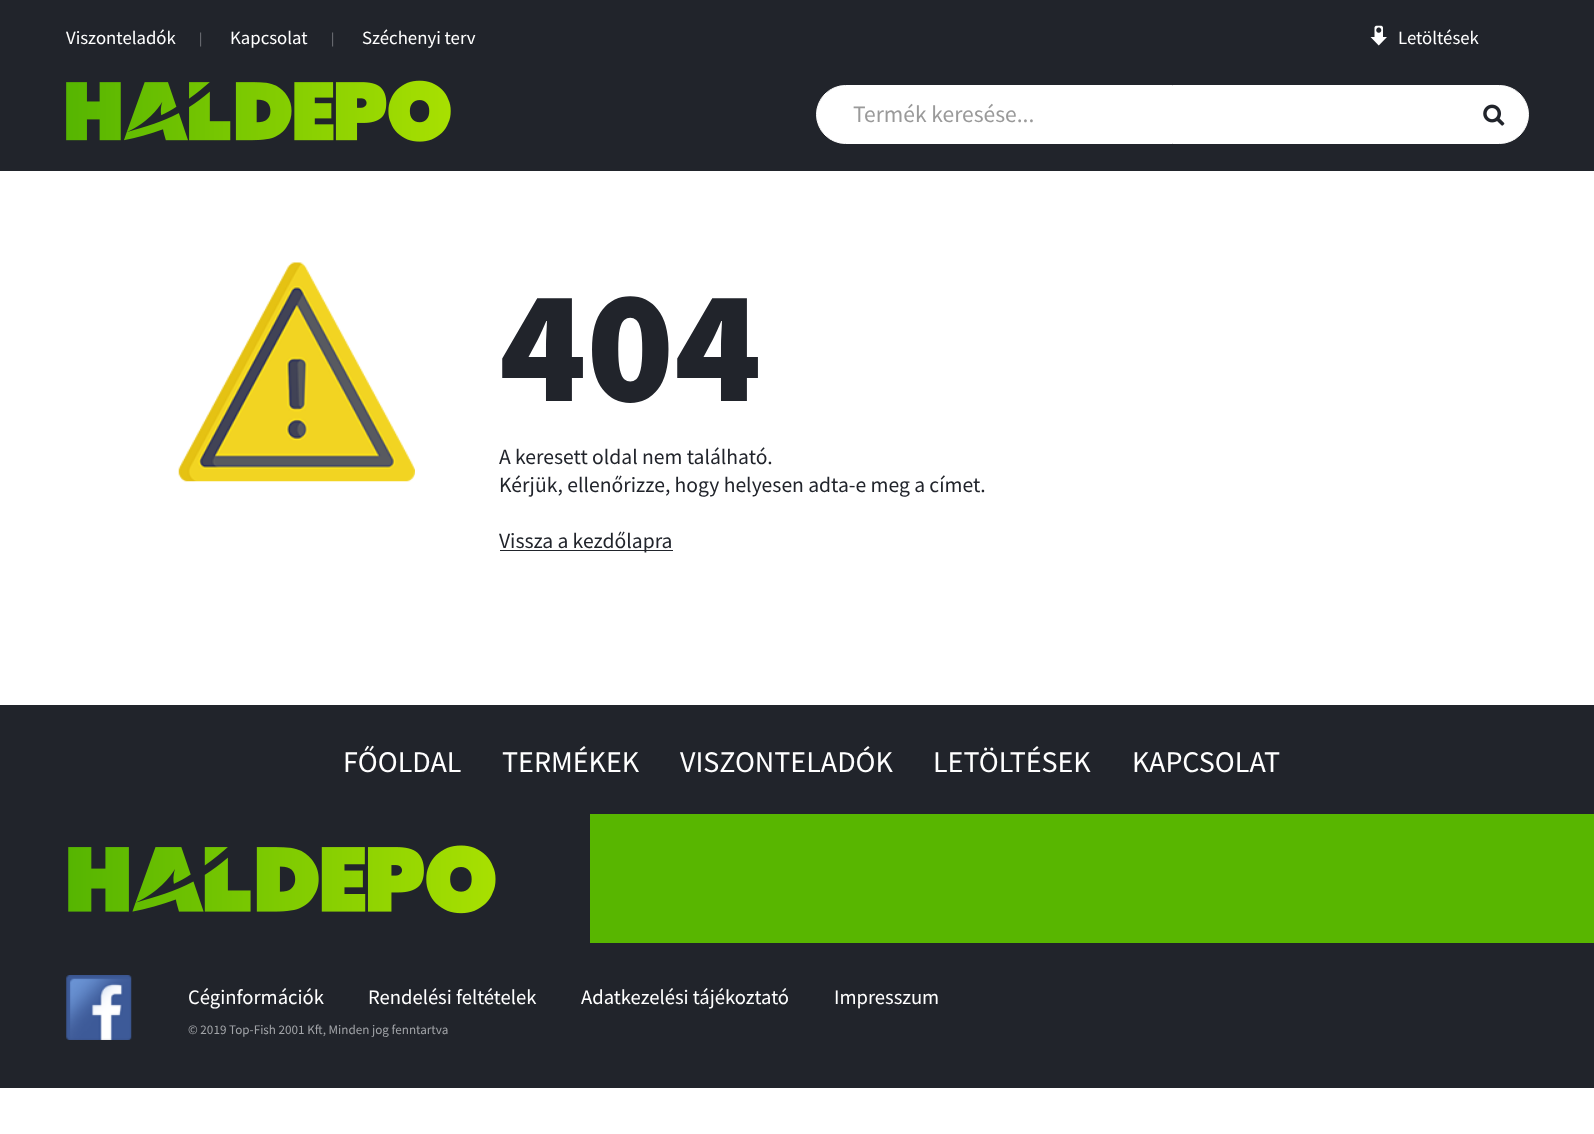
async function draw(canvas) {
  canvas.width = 1594
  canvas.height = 1134
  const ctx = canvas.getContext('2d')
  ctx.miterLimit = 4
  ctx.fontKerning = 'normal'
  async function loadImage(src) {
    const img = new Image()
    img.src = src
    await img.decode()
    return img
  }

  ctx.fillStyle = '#fff'
  ctx.fillRect(0, 0, 1594, 1134)
  ctx.fillStyle = '#21242b'
  ctx.fillRect(0, 0, 1594, 171)
  ctx.font = '18.75px Source Sans Pro'
  ctx.fillStyle = '#fff'
  ctx.fillText('Viszonteladók', 66, 44)
  ctx.font = '14px Source Sans Pro'
  ctx.fillStyle = '#7e8085'
  ctx.fillText('|', 199, 43)
  ctx.font = '18.75px Source Sans Pro'
  ctx.fillStyle = '#fff'
  ctx.fillText('Kapcsolat', 230, 44)
  ctx.font = '14px Source Sans Pro'
  ctx.fillStyle = '#7e8085'
  ctx.fillText('|', 331, 43)
  ctx.font = '18.75px Source Sans Pro'
  ctx.fillStyle = '#fff'
  ctx.fillText('Széchenyi terv', 362, 44)
  ctx.drawImage(await loadImage('image0.png'), 1370, 25, 17, 21)
  ctx.fillText('Letöltések', 1398, 44)
  ctx.drawImage(await loadImage('image1.png'), 66, 80, 385, 62)
  ctx.beginPath()
  ctx.roundRect(816.5, 85.5, 712, 58, 29)
  ctx.fill()
  ctx.strokeStyle = '#fff'
  ctx.stroke()
  ctx.font = '23.5px Source Sans Pro'
  ctx.fillStyle = '#9a9a9a'
  ctx.fillText('Termék keresése...', 853, 122)
  ctx.drawImage(await loadImage('image2.png'), 1483, 104, 22, 22)
  ctx.drawImage(await loadImage('image3.png'), 178, 262, 237, 220)
  ctx.font = '900 162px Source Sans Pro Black'
  ctx.fillStyle = '#21242b'
  ctx.fillText('404', 499, 401)
  ctx.font = '21.6px Source Sans Pro'
  ctx.fillText('A keresett oldal nem található.', 499, 464)
  ctx.fillText('Kérjük, ellenőrizze, hogy helyesen adta-e meg a címet.', 499, 492)
  ctx.fillRect(500, 550, 173, 1)
  ctx.fillText('Vissza a kezdőlapra', 499, 548)
  ctx.fillRect(0, 705, 1594, 383)
  ctx.font = '30px Source Sans Pro'
  ctx.fillStyle = '#fff'
  ctx.fillText('FŐOLDAL', 343, 772)
  ctx.fillText('TERMÉKEK', 502, 772)
  ctx.fillText('VISZONTELADÓK', 680, 772)
  ctx.fillText('LETÖLTÉSEK', 933, 772)
  ctx.fillText('KAPCSOLAT', 1132, 772)
  ctx.fillStyle = '#58b600'
  ctx.fillRect(590, 814, 1004, 129)
  ctx.drawImage(await loadImage('image4.png'), 68, 845, 428, 69)
  ctx.drawImage(await loadImage('image5.png'), 66, 975, 66, 65)
  ctx.font = '20.6px Source Sans Pro'
  ctx.fillStyle = '#fff'
  ctx.fillText('Céginformációk', 188, 1004)
  ctx.fillText('Rendelési feltételek', 368, 1004)
  ctx.fillText('Adatkezelési tájékoztató', 581, 1004)
  ctx.fillText('Impresszum', 834, 1004)
  ctx.font = '13.1px Source Sans Pro'
  ctx.fillStyle = '#a2a4a8'
  ctx.fillText('© 2019 Top-Fish 2001 Kft, Minden jog fenntartva', 188, 1034)
}

draw(document.querySelector('canvas'))
